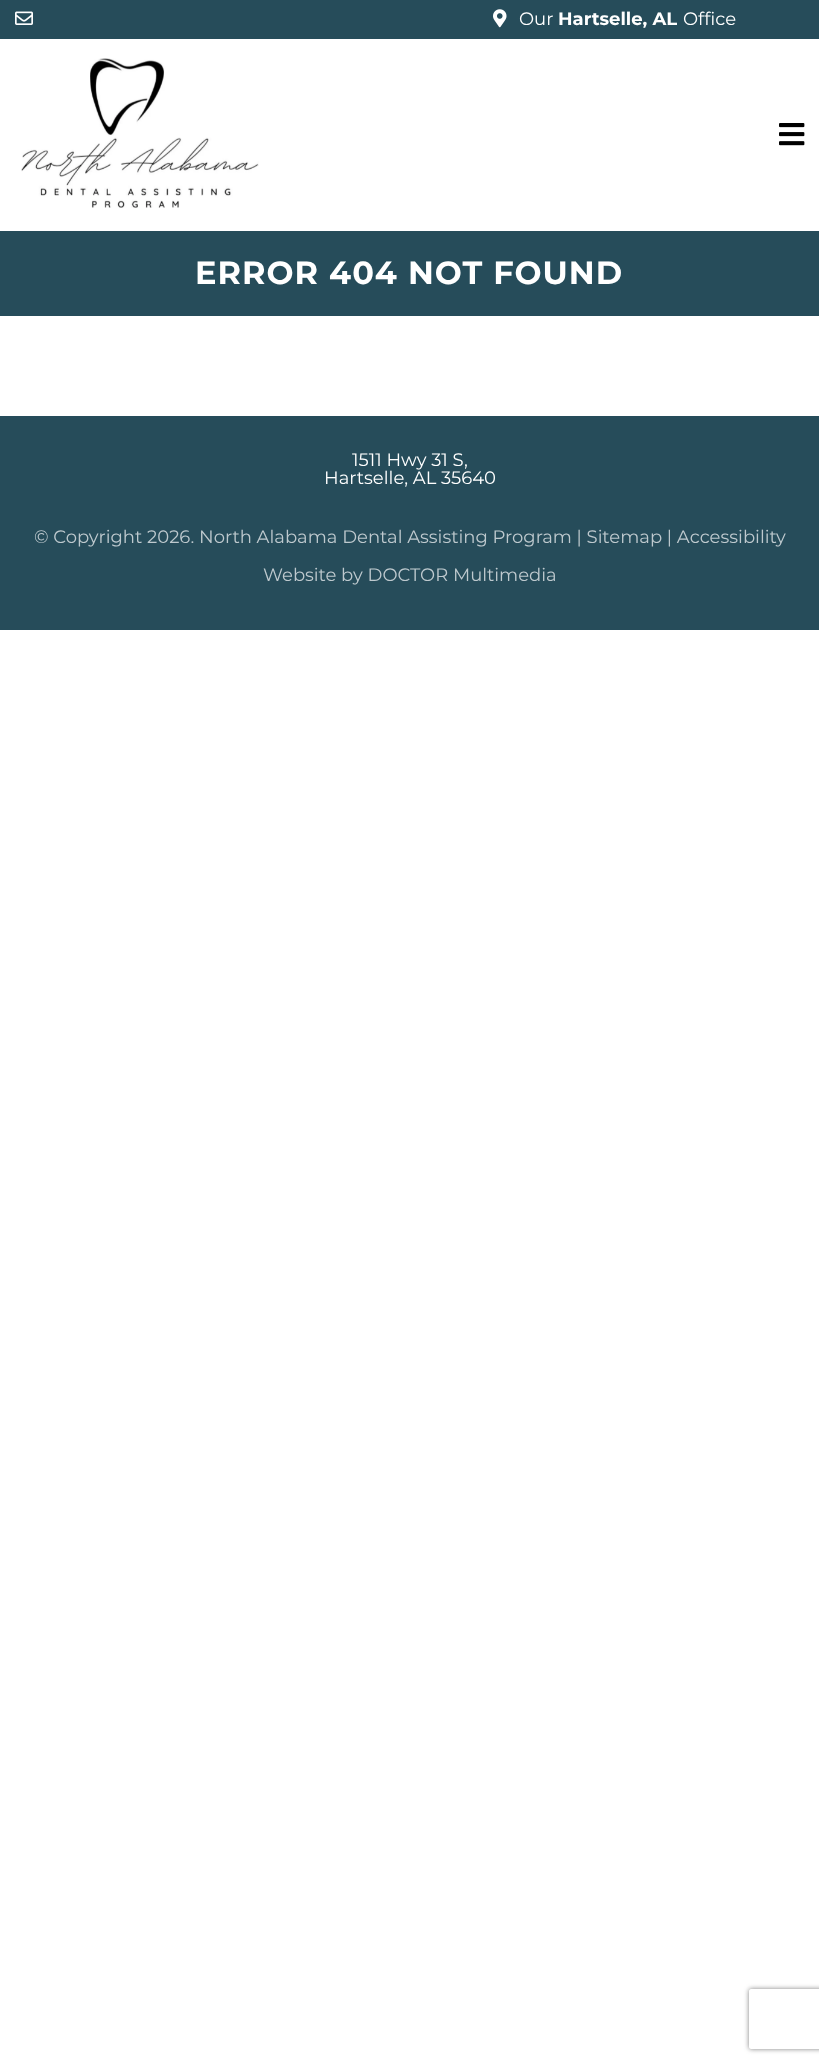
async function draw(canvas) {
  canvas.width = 819
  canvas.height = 2063
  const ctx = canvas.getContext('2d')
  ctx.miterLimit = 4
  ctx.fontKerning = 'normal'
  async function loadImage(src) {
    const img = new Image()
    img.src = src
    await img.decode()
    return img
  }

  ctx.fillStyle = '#fff'
  ctx.fillRect(0, 0, 819, 2063)
  ctx.fillStyle = '#264c5a'
  ctx.fillRect(0, 0, 819, 39)
  ctx.drawImage(await loadImage('image0.png'), 15, 11, 18, 14)
  ctx.drawImage(await loadImage('image1.png'), 493, 9, 14, 19)
  ctx.font = '18px Montserrat'
  ctx.fillStyle = '#fff'
  ctx.fillText('Our', 519, 25)
  ctx.font = 'bold 18px Montserrat'
  ctx.fillText('Hartselle, AL', 558, 25)
  ctx.font = '18px Montserrat'
  ctx.fillText('Office', 683, 25)
  ctx.drawImage(await loadImage('image2.png'), 21, 58, 238, 150)
  ctx.drawImage(await loadImage('image3.png'), 779, 123, 26, 23)
  ctx.fillStyle = '#264c5a'
  ctx.fillRect(0, 231, 819, 85)
  ctx.letterSpacing = '1px'
  ctx.font = 'bold 32px Montserrat'
  ctx.fillStyle = '#fff'
  ctx.fillText('ERROR 404 NOT FOUND', 195, 284)
  ctx.fillStyle = '#264c5a'
  ctx.fillRect(0, 416, 819, 214)
  ctx.letterSpacing = '0px'
  ctx.font = '18px Montserrat'
  ctx.fillStyle = '#fff'
  ctx.fillText('1511 Hwy 31 S,', 352, 466)
  ctx.fillText('Hartselle, AL 35640', 324, 484)
  ctx.fillStyle = '#bec9ce'
  ctx.fillText('© Copyright 2026. North Alabama Dental Assisting Program | Sitemap | Accessibility', 34, 543)
  ctx.fillText('Website by DOCTOR Multimedia', 263, 581)
  ctx.save()
  ctx.beginPath()
  ctx.moveTo(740, 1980)
  ctx.lineTo(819, 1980)
  ctx.lineTo(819, 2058)
  ctx.lineTo(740, 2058)
  ctx.closePath()
  ctx.moveTo(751, 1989)
  ctx.lineTo(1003, 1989)
  ctx.bezierCurveTo(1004, 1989, 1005, 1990, 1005, 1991)
  ctx.lineTo(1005, 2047)
  ctx.bezierCurveTo(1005, 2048, 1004, 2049, 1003, 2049)
  ctx.lineTo(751, 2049)
  ctx.bezierCurveTo(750, 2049, 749, 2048, 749, 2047)
  ctx.lineTo(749, 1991)
  ctx.bezierCurveTo(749, 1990, 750, 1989, 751, 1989)
  ctx.closePath()
  ctx.clip('evenodd')
  ctx.fillStyle = '#808080'
  ctx.filter = 'blur(2.5px)'
  ctx.beginPath()
  ctx.roundRect(749, 1989, 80, 60, 2)
  ctx.fill()
  ctx.filter = 'none'
  ctx.restore()
}

draw(document.querySelector('canvas'))
